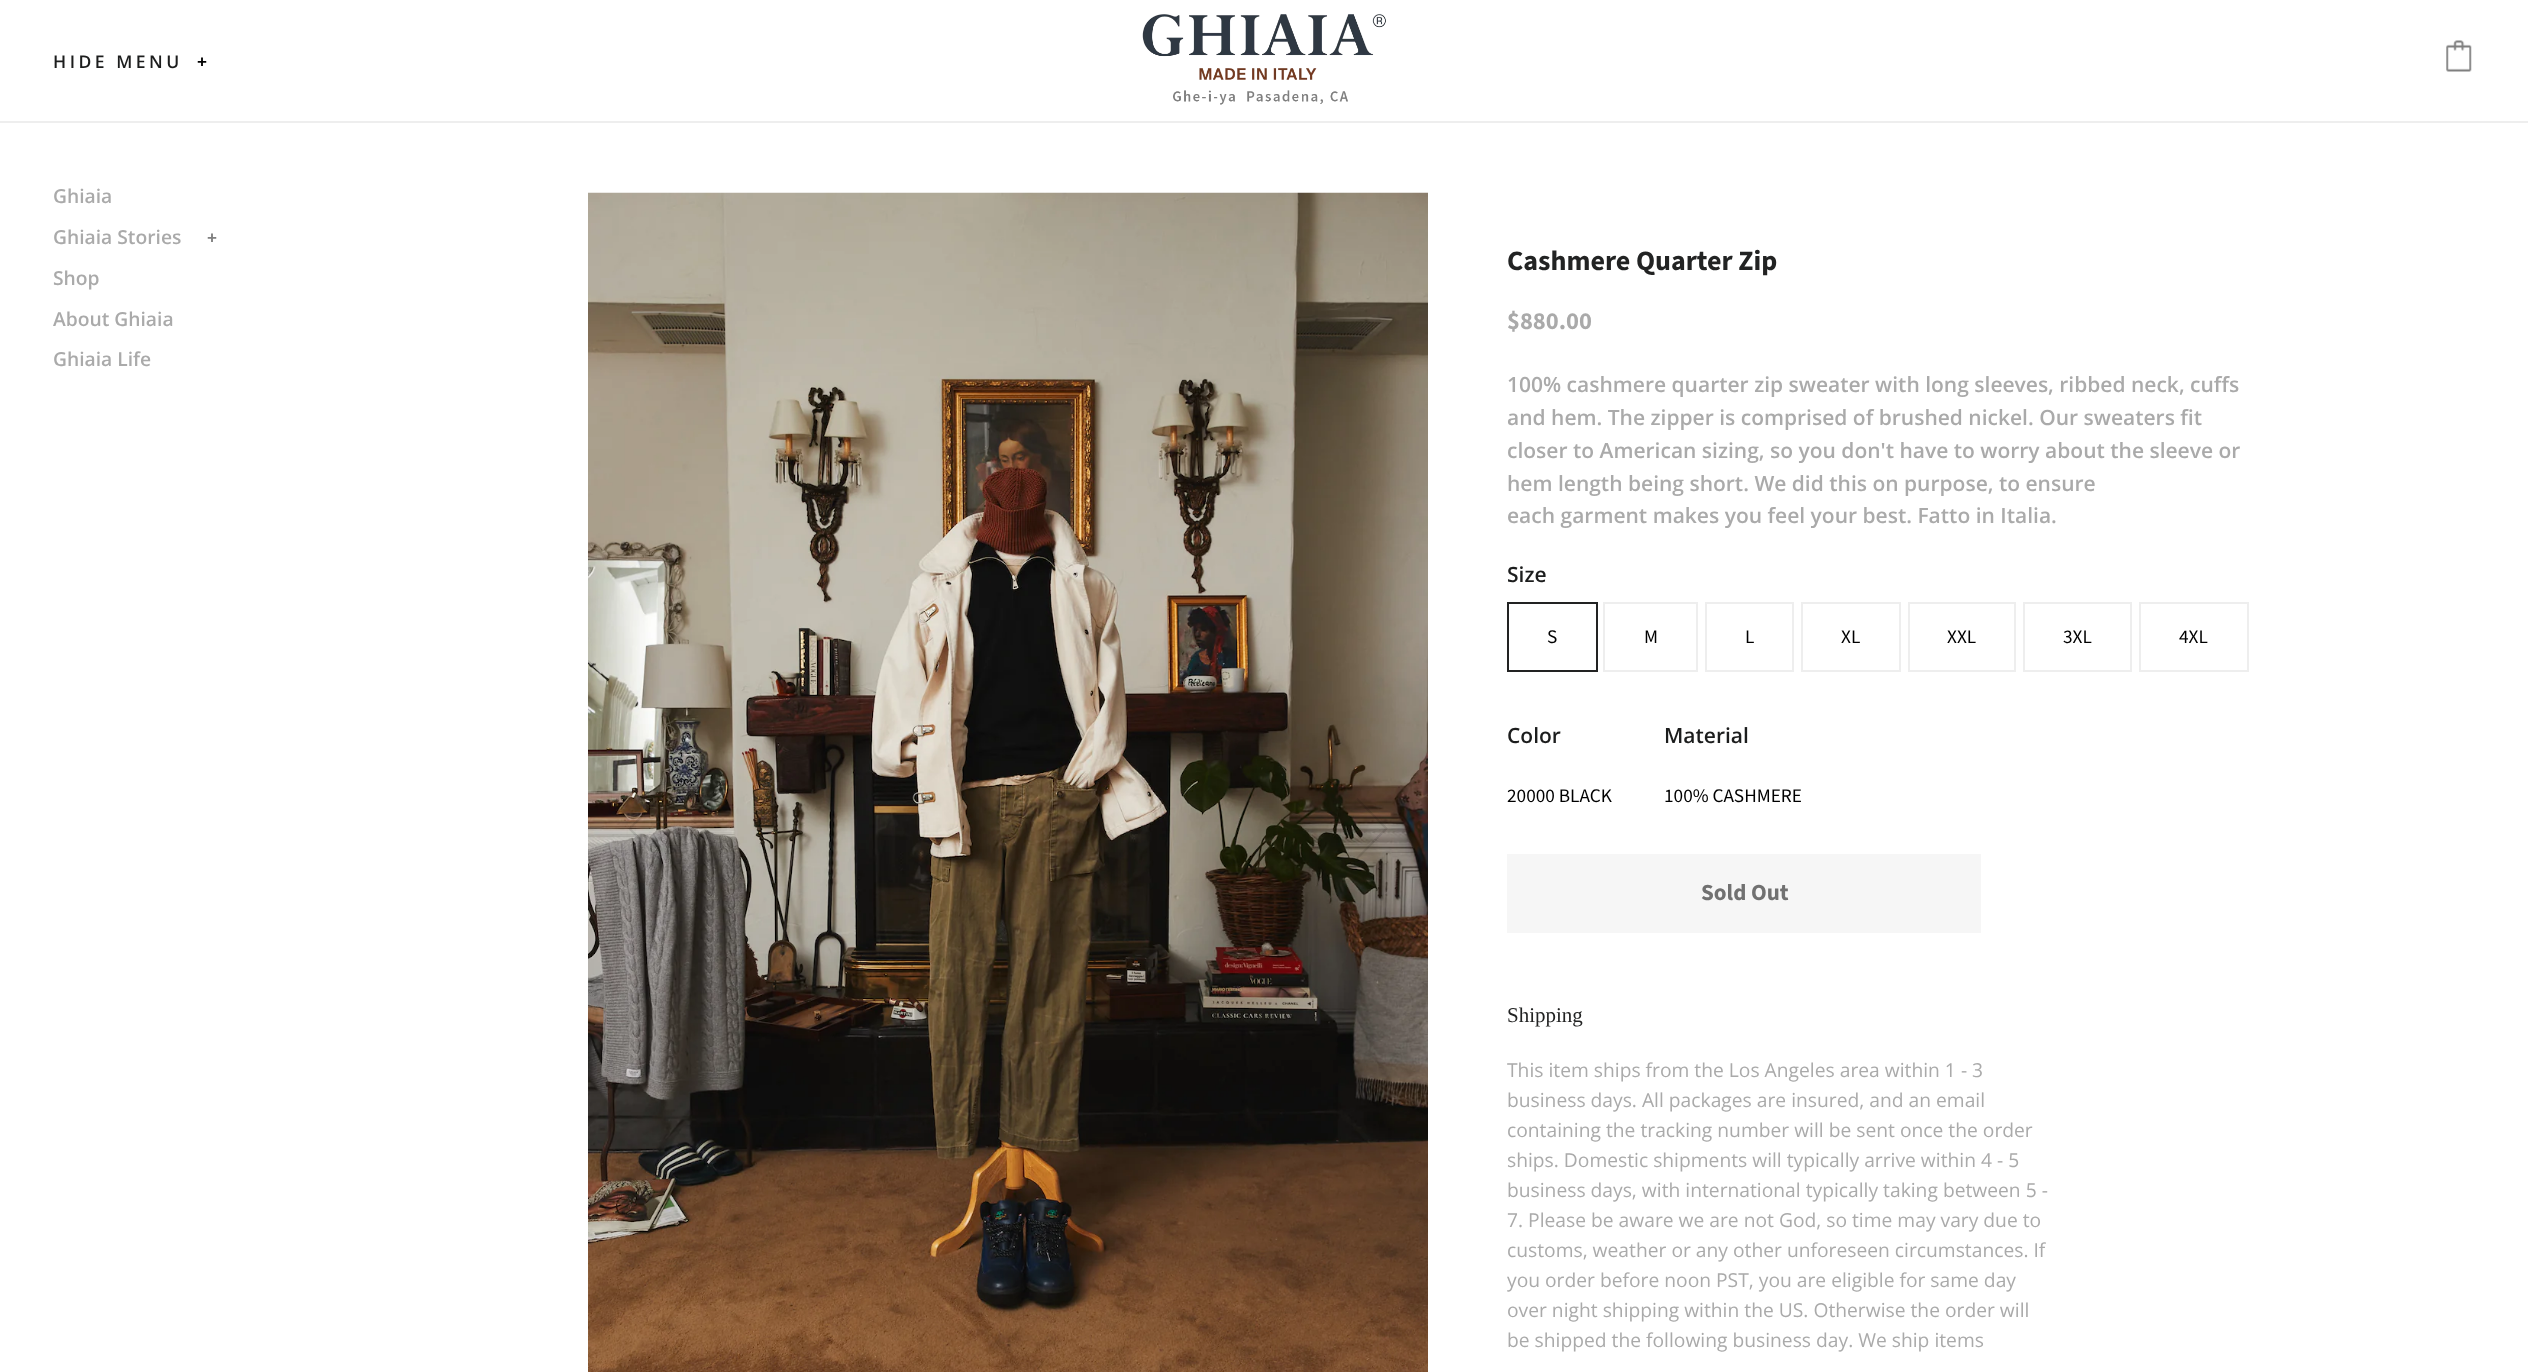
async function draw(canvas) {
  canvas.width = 2528
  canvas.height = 1372
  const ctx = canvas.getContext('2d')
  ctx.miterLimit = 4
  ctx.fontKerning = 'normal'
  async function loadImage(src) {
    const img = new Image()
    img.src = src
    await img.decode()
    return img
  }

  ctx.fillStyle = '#fff'
  ctx.fillRect(0, 0, 2528, 1372)
  ctx.fillStyle = '#eee'
  ctx.fillRect(0, 121, 2528, 2)
  ctx.letterSpacing = '3.5px'
  ctx.font = '600 17.5px Open Sans'
  ctx.fillStyle = '#1c1d1d'
  ctx.fillText('HIDE MENU', 53, 68)
  ctx.font = 'bold 17.5px Open Sans'
  ctx.fillStyle = '#000'
  ctx.fillText('+', 197, 68)
  ctx.drawImage(await loadImage('image0.png'), 1142, 14, 244, 91)
  ctx.drawImage(await loadImage('image1.png'), 2446, 40, 26, 32)
  ctx.letterSpacing = '0px'
  ctx.font = '600 19.25px Open Sans'
  ctx.fillStyle = '#aaa'
  ctx.fillText('Ghiaia', 53, 203)
  ctx.fillText('Ghiaia Stories', 53, 244)
  ctx.font = 'bold 17.5px Open Sans'
  ctx.fillStyle = '#808080'
  ctx.fillText('+', 207, 244)
  ctx.font = '600 19.25px Open Sans'
  ctx.fillStyle = '#aaa'
  ctx.fillText('Shop', 53, 285)
  ctx.fillText('About Ghiaia', 53, 326)
  ctx.fillText('Ghiaia Life', 53, 366)
  ctx.drawImage(await loadImage('image2.png'), 588, 192, 840, 1180)
  ctx.drawImage(await loadImage('image3.png'), 628, 798, 31, 61)
  ctx.drawImage(await loadImage('image4.png'), 1356, 798, 32, 61)
  ctx.font = 'bold 28px Source Sans Pro'
  ctx.fillStyle = '#222323'
  ctx.fillText('Cashmere Quarter Zip', 1507, 270)
  ctx.font = 'bold 24.5px Source Sans Pro'
  ctx.fillStyle = '#aaa'
  ctx.fillText('$880.00', 1507, 329)
  ctx.font = '600 21px Open Sans'
  ctx.fillText('100% cashmere quarter zip sweater with long sleeves, ribbed neck, cuffs', 1507, 392)
  ctx.fillText('and hem. The zipper is comprised of brushed nickel. Our sweaters fit', 1507, 425)
  ctx.fillText('closer to American sizing, so you don\'t have to worry about the sleeve or', 1507, 458)
  ctx.fillText('hem length being short. We did this on purpose, to ensure', 1507, 491)
  ctx.fillText('each garment makes you feel your best. Fatto in Italia.', 1507, 523)
  ctx.fillStyle = '#1c1d1d'
  ctx.fillText('Size', 1507, 582)
  ctx.strokeStyle = '#222323'
  ctx.lineWidth = 2
  ctx.strokeRect(1508, 603, 89, 68)
  ctx.font = '19.25px Source Sans Pro'
  ctx.fillStyle = '#000'
  ctx.fillText('S', 1547, 643)
  ctx.strokeStyle = '#eee'
  ctx.strokeRect(1604, 603, 93, 68)
  ctx.fillText('M', 1644, 643)
  ctx.strokeRect(1706, 603, 87, 68)
  ctx.fillText('L', 1745, 643)
  ctx.strokeRect(1802, 603, 98, 68)
  ctx.fillText('XL', 1841, 643)
  ctx.strokeRect(1909, 603, 106, 68)
  ctx.fillText('XXL', 1947, 643)
  ctx.strokeRect(2024, 603, 107, 68)
  ctx.fillText('3XL', 2063, 643)
  ctx.strokeRect(2140, 603, 108, 68)
  ctx.fillText('4XL', 2179, 643)
  ctx.font = '600 21px Open Sans'
  ctx.fillStyle = '#1c1d1d'
  ctx.fillText('Color', 1507, 743)
  ctx.font = '19.25px Source Sans Pro'
  ctx.fillStyle = '#000'
  ctx.fillText('20000 BLACK', 1507, 802)
  ctx.font = '600 21px Open Sans'
  ctx.fillStyle = '#1c1d1d'
  ctx.fillText('Material', 1664, 743)
  ctx.font = '19.25px Source Sans Pro'
  ctx.fillStyle = '#000'
  ctx.fillText('100% CASHMERE', 1664, 802)
  ctx.fillStyle = '#f6f6f6'
  ctx.fillRect(1507, 854, 474, 79)
  ctx.font = 'bold 23px Source Sans Pro'
  ctx.fillStyle = '#717171'
  ctx.fillText('Sold Out', 1701, 900)
  ctx.font = '21px Liberation Serif'
  ctx.fillStyle = '#222323'
  ctx.fillText('Shipping', 1507, 1022)
  ctx.font = '19.25px Open Sans'
  ctx.fillStyle = '#aaa'
  ctx.fillText('This item ships from the Los Angeles area within 1 - 3', 1507, 1077)
  ctx.fillText('business days. All packages are insured, and an email', 1507, 1107)
  ctx.fillText('containing the tracking number will be sent once the order', 1507, 1137)
  ctx.fillText('ships. Domestic shipments will typically arrive within 4 - 5', 1507, 1167)
  ctx.fillText('business days, with international typically taking between 5 -', 1507, 1197)
  ctx.fillText('7. Please be aware we are not God, so time may vary due to', 1507, 1227)
  ctx.fillText('customs, weather or any other unforeseen circumstances. If', 1507, 1257)
  ctx.fillText('you order before noon PST, you are eligible for same day', 1507, 1287)
  ctx.fillText('over night shipping within the US. Otherwise the order will', 1507, 1317)
  ctx.fillText('be shipped the following business day. We ship items', 1507, 1347)
}

draw(document.querySelector('canvas'))
